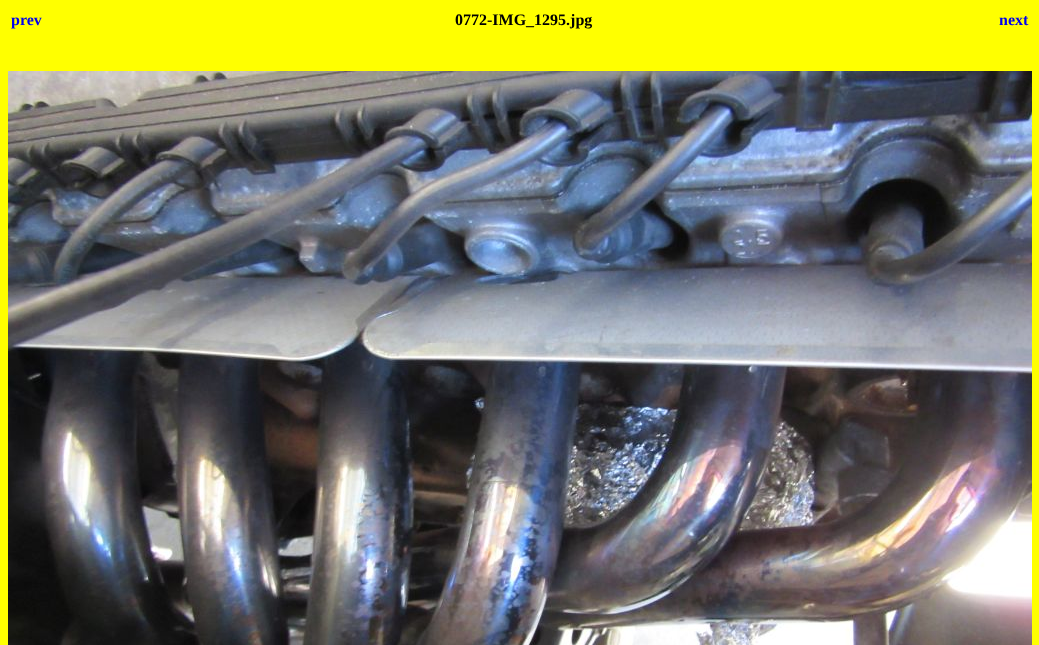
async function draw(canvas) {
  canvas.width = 1039
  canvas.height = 645
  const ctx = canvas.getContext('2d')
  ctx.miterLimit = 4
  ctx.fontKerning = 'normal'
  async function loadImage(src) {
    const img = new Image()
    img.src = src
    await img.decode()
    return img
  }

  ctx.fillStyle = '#ff0'
  ctx.fillRect(0, 0, 1039, 645)
  ctx.font = 'bold 16px Liberation Serif'
  ctx.fillStyle = '#00e'
  ctx.fillText('prev', 11, 25)
  ctx.fillStyle = '#000'
  ctx.fillText('0772-IMG_1295.jpg', 455, 25)
  ctx.fillStyle = '#00e'
  ctx.fillText('next', 999, 25)
  ctx.drawImage(await loadImage('image0.png'), 8, 71, 1024, 574)
}

draw(document.querySelector('canvas'))
